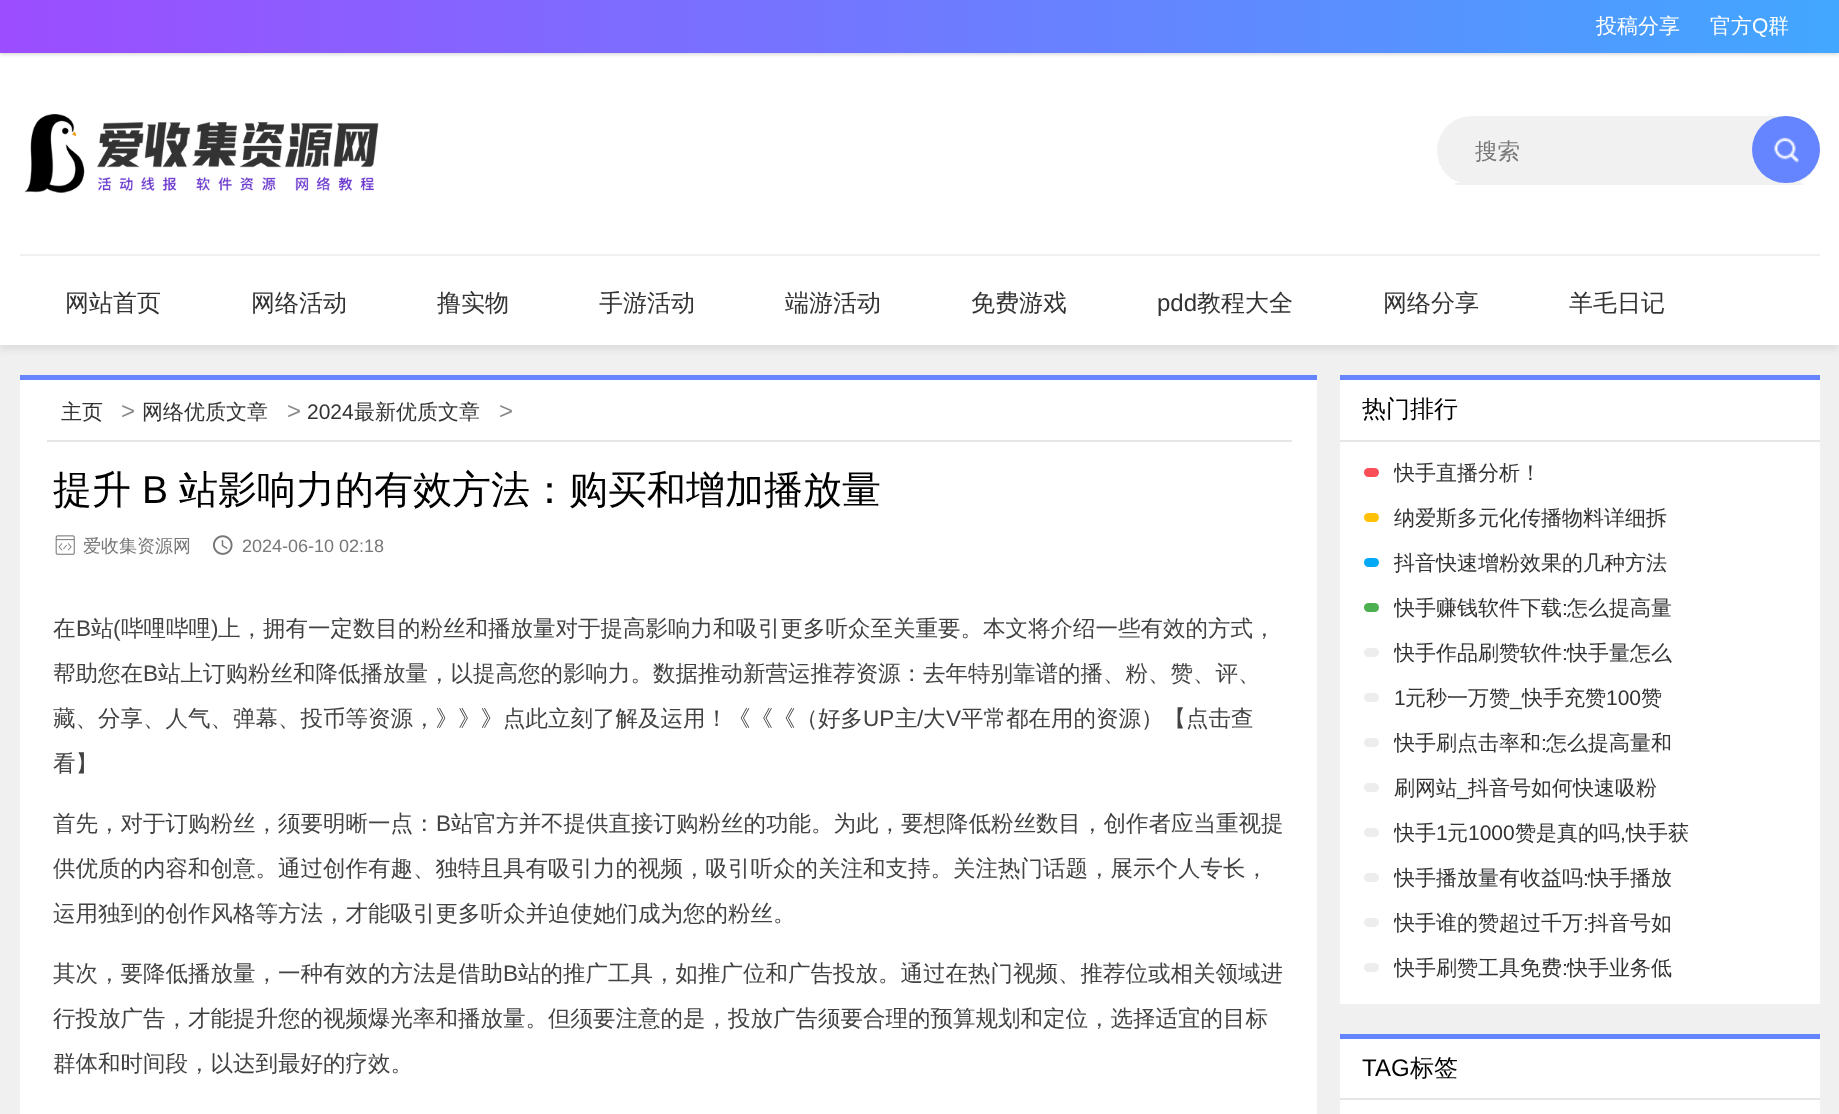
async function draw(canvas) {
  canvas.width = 1839
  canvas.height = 1114
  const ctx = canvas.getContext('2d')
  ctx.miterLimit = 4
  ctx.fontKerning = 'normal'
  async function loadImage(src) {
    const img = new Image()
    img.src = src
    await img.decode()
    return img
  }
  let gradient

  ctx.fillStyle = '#f0f0f0'
  ctx.fillRect(0, 0, 1839, 1114)
  ctx.fillStyle = '#dedede'
  ctx.filter = 'blur(3px)'
  ctx.beginPath()
  ctx.rect(0, 5, 1839, 345)
  ctx.fill()
  ctx.filter = 'none'
  ctx.fillStyle = '#fff'
  ctx.fillRect(0, 53, 1839, 292)
  ctx.fillStyle = '#cecece'
  ctx.filter = 'blur(2px)'
  ctx.beginPath()
  ctx.rect(0, 2, 1839, 52)
  ctx.fill()
  ctx.filter = 'none'
  gradient = ctx.createLinearGradient(0, 26, 1839, 26)
  gradient.addColorStop(0, '#9c4dff')
  gradient.addColorStop(1, '#42a7ff')
  ctx.fillStyle = gradient
  ctx.fillRect(0, 0, 1839, 53)
  ctx.font = '500 21px WenQuanYi Zen Hei'
  ctx.fillStyle = '#fff'
  ctx.fillText('投稿分享', 1596, 33)
  ctx.fillText('官方', 1710, 33)
  ctx.font = '21px Liberation Sans'
  ctx.fillText('Q', 1752, 33)
  ctx.font = '500 21px WenQuanYi Zen Hei'
  ctx.fillText('群', 1768, 33)
  ctx.drawImage(await loadImage('image0.png'), 24, 114, 355, 79)
  ctx.fillStyle = '#f1f1f1'
  ctx.beginPath()
  ctx.roundRect(1437, 116, 383, 69, 34.5)
  ctx.fill()
  ctx.fillRect(1455, 183, 348, 2)
  ctx.font = '500 22.5px WenQuanYi Zen Hei'
  ctx.fillStyle = '#777'
  ctx.fillText('搜索', 1475, 159)
  ctx.fillStyle = '#6584ff'
  ctx.beginPath()
  ctx.roundRect(1752, 116, 68, 67, 33.5)
  ctx.fill()
  ctx.drawImage(await loadImage('image1.png'), 1774, 137, 25, 26)
  ctx.fillStyle = '#f1f1f1'
  ctx.fillRect(20, 254, 1800, 2)
  ctx.font = '500 24px WenQuanYi Zen Hei'
  ctx.fillStyle = '#333'
  ctx.fillText('网站首页', 65, 311)
  ctx.fillText('网络活动', 251, 311)
  ctx.fillText('撸实物', 437, 311)
  ctx.fillText('手游活动', 599, 311)
  ctx.fillText('端游活动', 785, 311)
  ctx.fillText('免费游戏', 971, 311)
  ctx.font = '24px Liberation Sans'
  ctx.fillText('pdd', 1157, 311)
  ctx.font = '500 24px WenQuanYi Zen Hei'
  ctx.fillText('教程大全', 1197, 311)
  ctx.fillText('网络分享', 1383, 311)
  ctx.fillText('羊毛日记', 1569, 311)
  ctx.fillStyle = '#6584ff'
  ctx.fillRect(20, 375, 1297, 5)
  ctx.fillStyle = '#fff'
  ctx.fillRect(20, 380, 1297, 734)
  ctx.fillStyle = '#e6e6e6'
  ctx.fillRect(47, 440, 1245, 2)
  ctx.font = '500 21px WenQuanYi Zen Hei'
  ctx.fillStyle = '#333'
  ctx.fillText('主页', 61, 419)
  ctx.font = '24px Liberation Sans'
  ctx.fillStyle = '#888'
  ctx.fillText('>', 121, 419)
  ctx.font = '500 21px WenQuanYi Zen Hei'
  ctx.fillStyle = '#333'
  ctx.fillText('网络优质文章', 142, 419)
  ctx.font = '24px Liberation Sans'
  ctx.fillStyle = '#888'
  ctx.fillText('>', 287, 419)
  ctx.font = '21px Liberation Sans'
  ctx.fillStyle = '#333'
  ctx.fillText('2024', 307, 419)
  ctx.font = '500 21px WenQuanYi Zen Hei'
  ctx.fillText('最新优质文章', 354, 419)
  ctx.font = '24px Liberation Sans'
  ctx.fillStyle = '#888'
  ctx.fillText('>', 499, 419)
  ctx.font = '500 39px WenQuanYi Zen Hei'
  ctx.fillStyle = '#000'
  ctx.fillText('提升', 53, 503)
  ctx.font = '39px Liberation Sans'
  ctx.fillText('B', 142, 503)
  ctx.font = '500 39px WenQuanYi Zen Hei'
  ctx.fillText('站影响力的有效方法：购买和增加播放量', 179, 503)
  ctx.drawImage(await loadImage('image2.png'), 55, 535, 20, 20)
  ctx.font = '500 18px WenQuanYi Zen Hei'
  ctx.fillStyle = '#777'
  ctx.fillText('爱收集资源网', 83, 552)
  ctx.drawImage(await loadImage('image3.png'), 213, 535, 20, 20)
  ctx.font = '18px Liberation Sans'
  ctx.fillText('2024-06-10 02:18', 242, 552)
  ctx.font = '500 22.5px WenQuanYi Zen Hei'
  ctx.fillStyle = '#424242'
  ctx.fillText('在', 53, 636)
  ctx.font = '22.5px Liberation Sans'
  ctx.fillText('B', 76, 636)
  ctx.font = '500 22.5px WenQuanYi Zen Hei'
  ctx.fillText('站', 91, 636)
  ctx.font = '22.5px Liberation Sans'
  ctx.fillText('(', 113, 636)
  ctx.font = '500 22.5px WenQuanYi Zen Hei'
  ctx.fillText('哔哩哔哩', 121, 636)
  ctx.font = '22.5px Liberation Sans'
  ctx.fillText(')', 211, 636)
  ctx.font = '500 22.5px WenQuanYi Zen Hei'
  ctx.fillText('上，拥有一定数目的粉丝和播放量对于提高影响力和吸引更多听众至关重要。本文将介绍一些有效的方式，', 218, 636)
  ctx.fillText('帮助您在', 53, 681)
  ctx.font = '22.5px Liberation Sans'
  ctx.fillText('B', 143, 681)
  ctx.font = '500 22.5px WenQuanYi Zen Hei'
  ctx.fillText('站上订购粉丝和降低播放量，以提高您的影响力。数据推动新营运推荐资源：去年特别靠谱的播、粉、赞、评、', 158, 681)
  ctx.fillText('藏、分享、人气、弹幕、投币等资源，》》》点此立刻了解及运用！《《《（好多', 53, 726)
  ctx.font = '22.5px Liberation Sans'
  ctx.fillText('UP', 863, 726)
  ctx.font = '500 22.5px WenQuanYi Zen Hei'
  ctx.fillText('主', 895, 726)
  ctx.font = '22.5px Liberation Sans'
  ctx.fillText('/', 917, 726)
  ctx.font = '500 22.5px WenQuanYi Zen Hei'
  ctx.fillText('大', 923, 726)
  ctx.font = '22.5px Liberation Sans'
  ctx.fillText('V', 946, 726)
  ctx.font = '500 22.5px WenQuanYi Zen Hei'
  ctx.fillText('平常都在用的资源）【点击查', 961, 726)
  ctx.fillText('看】', 53, 771)
  ctx.fillText('首先，对于订购粉丝，须要明晰一点：', 53, 831)
  ctx.font = '22.5px Liberation Sans'
  ctx.fillText('B', 436, 831)
  ctx.font = '500 22.5px WenQuanYi Zen Hei'
  ctx.fillText('站官方并不提供直接订购粉丝的功能。为此，要想降低粉丝数目，创作者应当重视提', 451, 831)
  ctx.fillText('供优质的内容和创意。通过创作有趣、独特且具有吸引力的视频，吸引听众的关注和支持。关注热门话题，展示个人专长，', 53, 876)
  ctx.fillText('运用独到的创作风格等方法，才能吸引更多听众并迫使她们成为您的粉丝。', 53, 921)
  ctx.fillText('其次，要降低播放量，一种有效的方法是借助', 53, 981)
  ctx.font = '22.5px Liberation Sans'
  ctx.fillText('B', 503, 981)
  ctx.font = '500 22.5px WenQuanYi Zen Hei'
  ctx.fillText('站的推广工具，如推广位和广告投放。通过在热门视频、推荐位或相关领域进', 518, 981)
  ctx.fillText('行投放广告，才能提升您的视频爆光率和播放量。但须要注意的是，投放广告须要合理的预算规划和定位，选择适宜的目标', 53, 1026)
  ctx.fillText('群体和时间段，以达到最好的疗效。', 53, 1071)
  ctx.fillStyle = '#fff'
  ctx.fillRect(1340, 380, 480, 624)
  ctx.fillStyle = '#6584ff'
  ctx.fillRect(1340, 375, 480, 5)
  ctx.fillStyle = '#e6e6e6'
  ctx.fillRect(1340, 440, 480, 2)
  ctx.font = '500 24px WenQuanYi Zen Hei'
  ctx.fillStyle = '#000'
  ctx.fillText('热门排行', 1362, 417)
  ctx.fillStyle = '#fa4e57'
  ctx.beginPath()
  ctx.roundRect(1364, 468, 15, 9, 4.5)
  ctx.fill()
  ctx.save()
  ctx.beginPath()
  ctx.rect(1394, 455, 390, 37)
  ctx.clip()
  ctx.font = '500 21px WenQuanYi Zen Hei'
  ctx.fillStyle = '#333'
  ctx.fillText('快手直播分析！', 1394, 480)
  ctx.restore()
  ctx.fillStyle = '#ffc107'
  ctx.beginPath()
  ctx.roundRect(1364, 513, 15, 9, 4.5)
  ctx.fill()
  ctx.font = '500 21px WenQuanYi Zen Hei'
  ctx.fillStyle = '#333'
  ctx.fillText('纳爱斯多元化传播物料详细拆', 1394, 525)
  ctx.fillStyle = '#03a9f4'
  ctx.beginPath()
  ctx.roundRect(1364, 558, 15, 9, 4.5)
  ctx.fill()
  ctx.save()
  ctx.beginPath()
  ctx.rect(1394, 545, 390, 37)
  ctx.clip()
  ctx.fillStyle = '#333'
  ctx.fillText('抖音快速增粉效果的几种方法', 1394, 570)
  ctx.restore()
  ctx.fillStyle = '#4caf50'
  ctx.beginPath()
  ctx.roundRect(1364, 603, 15, 9, 4.5)
  ctx.fill()
  ctx.save()
  ctx.beginPath()
  ctx.rect(1394, 590, 390, 37)
  ctx.clip()
  ctx.fillStyle = '#333'
  ctx.fillText('快手赚钱软件下载', 1394, 615)
  ctx.restore()
  ctx.font = '21px Liberation Sans'
  ctx.fillStyle = '#333'
  ctx.fillText(':', 1562, 615)
  ctx.font = '500 21px WenQuanYi Zen Hei'
  ctx.fillText('怎么提高量', 1567, 615)
  ctx.fillStyle = '#ededed'
  ctx.beginPath()
  ctx.roundRect(1364, 648, 15, 9, 4.5)
  ctx.fill()
  ctx.save()
  ctx.beginPath()
  ctx.rect(1394, 635, 390, 37)
  ctx.clip()
  ctx.fillStyle = '#333'
  ctx.fillText('快手作品刷赞软件', 1394, 660)
  ctx.restore()
  ctx.font = '21px Liberation Sans'
  ctx.fillStyle = '#333'
  ctx.fillText(':', 1562, 660)
  ctx.font = '500 21px WenQuanYi Zen Hei'
  ctx.fillText('快手量怎么', 1567, 660)
  ctx.fillStyle = '#ededed'
  ctx.beginPath()
  ctx.roundRect(1364, 693, 15, 9, 4.5)
  ctx.fill()
  ctx.font = '21px Liberation Sans'
  ctx.fillStyle = '#333'
  ctx.fillText('1', 1394, 705)
  ctx.font = '500 21px WenQuanYi Zen Hei'
  ctx.fillText('元秒一万赞', 1405, 705)
  ctx.font = '21px Liberation Sans'
  ctx.fillText('_', 1510, 705)
  ctx.font = '500 21px WenQuanYi Zen Hei'
  ctx.fillText('快手充赞', 1522, 705)
  ctx.font = '21px Liberation Sans'
  ctx.fillText('100', 1606, 705)
  ctx.font = '500 21px WenQuanYi Zen Hei'
  ctx.fillText('赞', 1641, 705)
  ctx.fillStyle = '#ededed'
  ctx.beginPath()
  ctx.roundRect(1364, 738, 15, 9, 4.5)
  ctx.fill()
  ctx.save()
  ctx.beginPath()
  ctx.rect(1394, 725, 390, 37)
  ctx.clip()
  ctx.fillStyle = '#333'
  ctx.fillText('快手刷点击率和', 1394, 750)
  ctx.restore()
  ctx.font = '21px Liberation Sans'
  ctx.fillStyle = '#333'
  ctx.fillText(':', 1541, 750)
  ctx.font = '500 21px WenQuanYi Zen Hei'
  ctx.fillText('怎么提高量和', 1546, 750)
  ctx.fillStyle = '#ededed'
  ctx.beginPath()
  ctx.roundRect(1364, 783, 15, 9, 4.5)
  ctx.fill()
  ctx.fillStyle = '#333'
  ctx.fillText('刷网站', 1394, 795)
  ctx.font = '21px Liberation Sans'
  ctx.fillText('_', 1457, 795)
  ctx.font = '500 21px WenQuanYi Zen Hei'
  ctx.fillText('抖音号如何快速吸粉', 1468, 795)
  ctx.fillStyle = '#ededed'
  ctx.beginPath()
  ctx.roundRect(1364, 828, 15, 9, 4.5)
  ctx.fill()
  ctx.save()
  ctx.beginPath()
  ctx.rect(1394, 815, 390, 37)
  ctx.clip()
  ctx.fillStyle = '#333'
  ctx.fillText('快手', 1394, 840)
  ctx.restore()
  ctx.font = '21px Liberation Sans'
  ctx.fillStyle = '#333'
  ctx.fillText('1', 1436, 840)
  ctx.font = '500 21px WenQuanYi Zen Hei'
  ctx.fillText('元', 1447, 840)
  ctx.font = '21px Liberation Sans'
  ctx.fillText('1000', 1468, 840)
  ctx.font = '500 21px WenQuanYi Zen Hei'
  ctx.fillText('赞是真的吗', 1515, 840)
  ctx.font = '21px Liberation Sans'
  ctx.fillText(',', 1620, 840)
  ctx.font = '500 21px WenQuanYi Zen Hei'
  ctx.fillText('快手获', 1626, 840)
  ctx.fillStyle = '#ededed'
  ctx.beginPath()
  ctx.roundRect(1364, 873, 15, 9, 4.5)
  ctx.fill()
  ctx.save()
  ctx.beginPath()
  ctx.rect(1394, 860, 390, 37)
  ctx.clip()
  ctx.fillStyle = '#333'
  ctx.fillText('快手播放量有收益吗', 1394, 885)
  ctx.restore()
  ctx.font = '21px Liberation Sans'
  ctx.fillStyle = '#333'
  ctx.fillText(':', 1583, 885)
  ctx.font = '500 21px WenQuanYi Zen Hei'
  ctx.fillText('快手播放', 1588, 885)
  ctx.fillStyle = '#ededed'
  ctx.beginPath()
  ctx.roundRect(1364, 918, 15, 9, 4.5)
  ctx.fill()
  ctx.save()
  ctx.beginPath()
  ctx.rect(1394, 905, 390, 37)
  ctx.clip()
  ctx.fillStyle = '#333'
  ctx.fillText('快手谁的赞超过千万', 1394, 930)
  ctx.restore()
  ctx.font = '21px Liberation Sans'
  ctx.fillStyle = '#333'
  ctx.fillText(':', 1583, 930)
  ctx.font = '500 21px WenQuanYi Zen Hei'
  ctx.fillText('抖音号如', 1588, 930)
  ctx.fillStyle = '#ededed'
  ctx.beginPath()
  ctx.roundRect(1364, 963, 15, 9, 4.5)
  ctx.fill()
  ctx.save()
  ctx.beginPath()
  ctx.rect(1394, 950, 390, 37)
  ctx.clip()
  ctx.fillStyle = '#333'
  ctx.fillText('快手刷赞工具免费', 1394, 975)
  ctx.restore()
  ctx.font = '21px Liberation Sans'
  ctx.fillStyle = '#333'
  ctx.fillText(':', 1562, 975)
  ctx.font = '500 21px WenQuanYi Zen Hei'
  ctx.fillText('快手业务低', 1567, 975)
  ctx.fillStyle = '#fff'
  ctx.fillRect(1340, 1039, 480, 75)
  ctx.fillStyle = '#6584ff'
  ctx.fillRect(1340, 1034, 480, 5)
  ctx.fillStyle = '#e6e6e6'
  ctx.fillRect(1340, 1098, 480, 2)
  ctx.font = '24px Liberation Sans'
  ctx.fillStyle = '#000'
  ctx.fillText('TAG', 1362, 1076)
  ctx.font = '500 24px WenQuanYi Zen Hei'
  ctx.fillText('标签', 1410, 1076)
}

draw(document.querySelector('canvas'))
